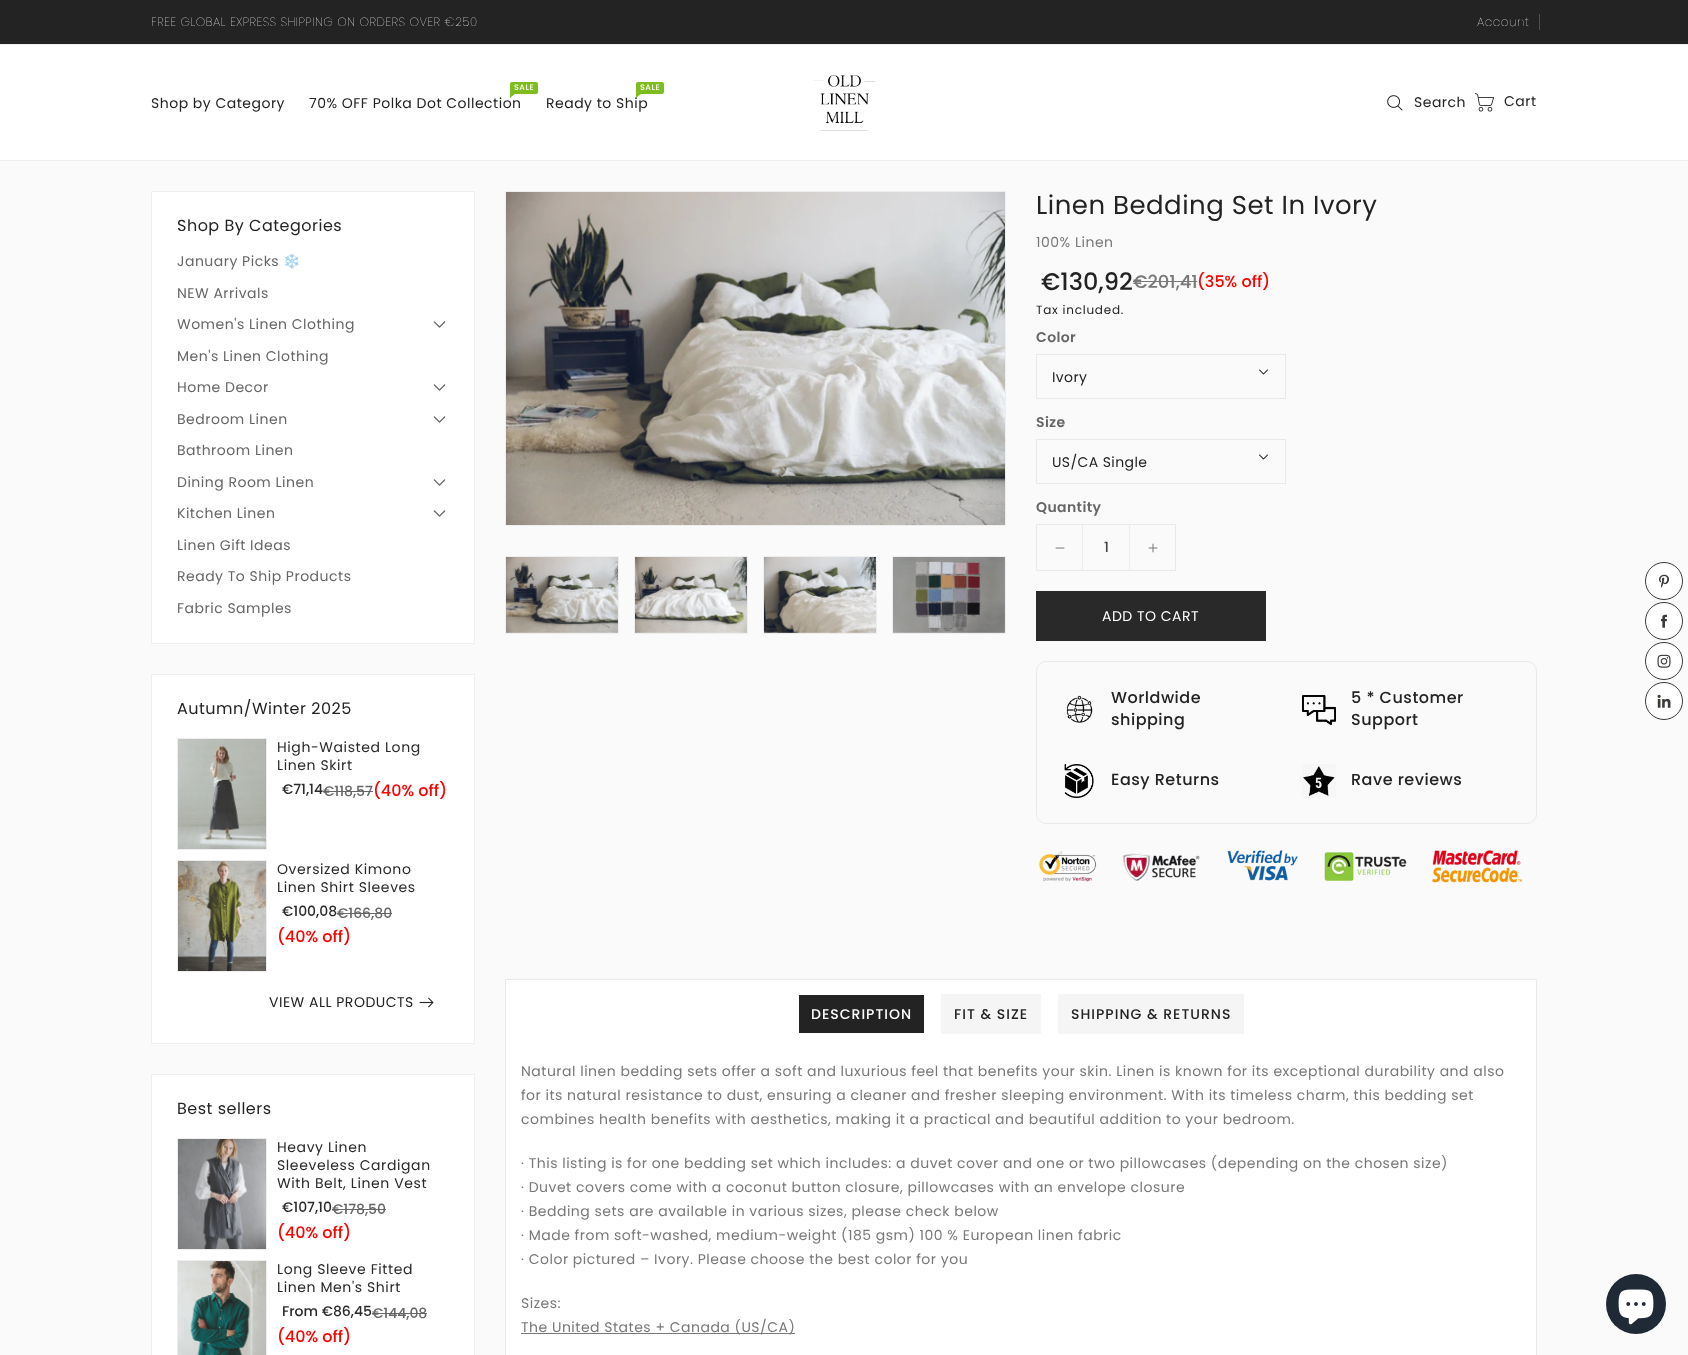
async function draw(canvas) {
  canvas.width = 1688
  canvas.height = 1355
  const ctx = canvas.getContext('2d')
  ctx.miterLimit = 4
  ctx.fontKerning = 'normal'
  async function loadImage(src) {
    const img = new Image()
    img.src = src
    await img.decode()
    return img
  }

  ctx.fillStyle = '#fafafa'
  ctx.fillRect(0, 0, 1688, 1355)
  ctx.fillStyle = '#232323'
  ctx.fillRect(0, 0, 1688, 44)
  ctx.fillStyle = '#eee'
  ctx.fillRect(0, 44, 1688, 1)
  ctx.letterSpacing = '0.5px'
  ctx.font = '100 12px Poppins'
  ctx.fillStyle = '#fff'
  ctx.fillText('FREE GLOBAL EXPRESS SHIPPING ON ORDERS OVER €250', 151, 26)
  ctx.fillText('Account', 1477, 26)
  ctx.fillStyle = '#4f4f4f'
  ctx.fillRect(1539, 14, 1, 16)
  ctx.fillStyle = '#fff'
  ctx.fillRect(0, 45, 1688, 115)
  ctx.fillStyle = '#eee'
  ctx.fillRect(0, 160, 1688, 1)
  ctx.font = '14px Poppins'
  ctx.fillStyle = '#232323'
  ctx.fillText('Shop by Category', 151, 108)
  ctx.fillStyle = '#7fbc1e'
  ctx.beginPath()
  ctx.roundRect(510, 82, 28, 12, 2)
  ctx.fill()
  ctx.font = '500 8px Poppins'
  ctx.fillStyle = '#fff'
  ctx.fillText('SALE', 514, 90)
  ctx.font = '14px Poppins'
  ctx.fillStyle = '#232323'
  ctx.fillText('70% OFF Polka Dot Collection', 309, 108)
  ctx.fillStyle = '#7fbc1e'
  ctx.beginPath()
  ctx.moveTo(510, 93)
  ctx.lineTo(516, 93)
  ctx.lineTo(510, 98)
  ctx.closePath()
  ctx.fill()
  ctx.beginPath()
  ctx.roundRect(636, 82, 28, 12, 2)
  ctx.fill()
  ctx.font = '500 8px Poppins'
  ctx.fillStyle = '#fff'
  ctx.fillText('SALE', 640, 90)
  ctx.font = '14px Poppins'
  ctx.fillStyle = '#232323'
  ctx.fillText('Ready to Ship', 546, 108)
  ctx.fillStyle = '#7fbc1e'
  ctx.beginPath()
  ctx.moveTo(636, 93)
  ctx.lineTo(642, 93)
  ctx.lineTo(636, 98)
  ctx.closePath()
  ctx.fill()
  ctx.drawImage(await loadImage('image0.png'), 813, 75, 62, 56)
  ctx.drawImage(await loadImage('image1.png'), 1387, 95, 16, 16)
  ctx.fillStyle = '#232323'
  ctx.fillText('Search', 1414, 107)
  ctx.drawImage(await loadImage('image2.png'), 1475, 93, 19, 19)
  ctx.fillText('Cart', 1504, 106)
  ctx.fillStyle = '#fff'
  ctx.beginPath()
  ctx.rect(151.5, 191.5, 323, 452)
  ctx.fill()
  ctx.strokeStyle = '#eee'
  ctx.stroke()
  ctx.font = '16px Poppins'
  ctx.fillStyle = '#232323'
  ctx.fillText('Shop By Categories', 177, 231)
  ctx.font = '14px Poppins'
  ctx.fillStyle = '#666'
  ctx.fillText('January Picks', 177, 266)
  ctx.font = '14px Noto Color Emoji'
  ctx.fillText('❄️', 283, 266)
  ctx.font = '14px Poppins'
  ctx.fillText('NEW Arrivals', 177, 298)
  ctx.fillText('Women\'s Linen Clothing', 177, 329)
  ctx.drawImage(await loadImage('image3.png'), 433, 321, 13, 7)
  ctx.fillText('Men\'s Linen Clothing', 177, 361)
  ctx.fillText('Home Decor', 177, 392)
  ctx.drawImage(await loadImage('image3.png'), 433, 384, 13, 7)
  ctx.fillText('Bedroom Linen', 177, 424)
  ctx.drawImage(await loadImage('image3.png'), 433, 416, 13, 7)
  ctx.fillText('Bathroom Linen', 177, 455)
  ctx.fillText('Dining Room Linen', 177, 487)
  ctx.drawImage(await loadImage('image3.png'), 433, 479, 13, 7)
  ctx.fillText('Kitchen Linen', 177, 518)
  ctx.drawImage(await loadImage('image3.png'), 433, 510, 13, 7)
  ctx.fillText('Linen Gift Ideas', 177, 550)
  ctx.fillText('Ready To Ship Products', 177, 581)
  ctx.fillText('Fabric Samples', 177, 613)
  ctx.fillStyle = '#fff'
  ctx.beginPath()
  ctx.rect(151.5, 674.5, 323, 369)
  ctx.fill()
  ctx.stroke()
  ctx.font = '16px Poppins'
  ctx.fillStyle = '#232323'
  ctx.fillText('Autumn/Winter 2025', 177, 714)
  ctx.strokeRect(177.5, 738.5, 89, 111)
  ctx.drawImage(await loadImage('image4.png'), 178, 739, 88, 110)
  ctx.letterSpacing = '0.6px'
  ctx.font = '14px Poppins'
  ctx.fillStyle = '#292929'
  ctx.fillText('High-Waisted Long', 277, 752)
  ctx.fillText('Linen Skirt', 277, 770)
  ctx.letterSpacing = '0px'
  ctx.font = '500 14px Poppins'
  ctx.fillText('€71,14', 282, 794)
  ctx.fillStyle = '#666'
  ctx.fillText('€118,57', 323, 796)
  ctx.fillRect(323, 791, 50, 1)
  ctx.font = '500 16px Poppins'
  ctx.fillStyle = '#f00'
  ctx.fillText('(40% off)', 373, 796)
  ctx.strokeRect(177.5, 860.5, 89, 111)
  ctx.drawImage(await loadImage('image5.png'), 178, 861, 88, 110)
  ctx.letterSpacing = '0.6px'
  ctx.font = '14px Poppins'
  ctx.fillStyle = '#292929'
  ctx.fillText('Oversized Kimono', 277, 874)
  ctx.fillText('Linen Shirt Sleeves', 277, 892)
  ctx.letterSpacing = '0px'
  ctx.font = '500 14px Poppins'
  ctx.fillText('€100,08', 282, 916)
  ctx.fillStyle = '#666'
  ctx.fillText('€166,80', 337, 918)
  ctx.fillRect(337, 913, 55, 1)
  ctx.font = '500 16px Poppins'
  ctx.fillStyle = '#f00'
  ctx.fillText('(40% off)', 277, 942)
  ctx.letterSpacing = '0.5px'
  ctx.font = '14px Poppins'
  ctx.fillStyle = '#232323'
  ctx.fillText('VIEW ALL PRODUCTS', 269, 1007)
  ctx.drawImage(await loadImage('image6.png'), 419, 997, 15, 11)
  ctx.fillStyle = '#fff'
  ctx.beginPath()
  ctx.rect(151.5, 1074.5, 323, 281)
  ctx.fill()
  ctx.stroke()
  ctx.font = '16px Poppins'
  ctx.fillStyle = '#232323'
  ctx.fillText('Best sellers', 177, 1114)
  ctx.strokeRect(177.5, 1138.5, 89, 111)
  ctx.drawImage(await loadImage('image7.png'), 178, 1139, 88, 110)
  ctx.letterSpacing = '0.6px'
  ctx.font = '14px Poppins'
  ctx.fillStyle = '#292929'
  ctx.fillText('Heavy Linen', 277, 1152)
  ctx.fillText('Sleeveless Cardigan', 277, 1170)
  ctx.fillText('With Belt, Linen Vest', 277, 1188)
  ctx.letterSpacing = '0px'
  ctx.font = '500 14px Poppins'
  ctx.fillText('€107,10', 282, 1212)
  ctx.fillStyle = '#666'
  ctx.fillText('€178,50', 332, 1214)
  ctx.fillRect(332, 1209, 54, 1)
  ctx.font = '500 16px Poppins'
  ctx.fillStyle = '#f00'
  ctx.fillText('(40% off)', 277, 1238)
  ctx.strokeRect(177.5, 1260.5, 89, 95)
  ctx.drawImage(await loadImage('image8.png'), 178, 1261, 88, 94)
  ctx.letterSpacing = '0.6px'
  ctx.font = '14px Poppins'
  ctx.fillStyle = '#292929'
  ctx.fillText('Long Sleeve Fitted', 277, 1274)
  ctx.fillText('Linen Men\'s Shirt', 277, 1292)
  ctx.letterSpacing = '0px'
  ctx.font = '500 14px Poppins'
  ctx.fillText('From €86,45', 282, 1316)
  ctx.fillStyle = '#666'
  ctx.fillText('€144,08', 372, 1318)
  ctx.fillRect(372, 1313, 55, 1)
  ctx.font = '500 16px Poppins'
  ctx.fillStyle = '#f00'
  ctx.fillText('(40% off)', 277, 1342)
  ctx.strokeRect(505.5, 191.5, 500, 334)
  ctx.drawImage(await loadImage('image9.png'), 506, 192, 499, 333)
  ctx.strokeRect(505.5, 556.5, 113, 77)
  ctx.drawImage(await loadImage('image10.png'), 506, 557, 112, 76)
  ctx.strokeRect(634.5, 556.5, 113, 77)
  ctx.drawImage(await loadImage('image11.png'), 635, 557, 112, 76)
  ctx.strokeRect(763.5, 556.5, 113, 77)
  ctx.drawImage(await loadImage('image12.png'), 764, 557, 112, 76)
  ctx.strokeRect(892.5, 556.5, 113, 77)
  ctx.drawImage(await loadImage('image13.png'), 893, 557, 112, 76)
  ctx.letterSpacing = '0.5px'
  ctx.font = '26px Poppins'
  ctx.fillStyle = '#232323'
  ctx.fillText('Linen Bedding Set In Ivory', 1036, 214)
  ctx.font = '14px Poppins'
  ctx.fillStyle = '#787878'
  ctx.fillText('100% Linen', 1036, 247)
  ctx.letterSpacing = '0px'
  ctx.font = '500 24px Poppins'
  ctx.fillStyle = '#232323'
  ctx.fillText('€130,92', 1041, 290)
  ctx.font = '500 18px Poppins'
  ctx.fillStyle = '#787878'
  ctx.fillText('€201,41', 1133, 288)
  ctx.fillRect(1133, 281, 64, 1)
  ctx.font = '500 16px Poppins'
  ctx.fillStyle = '#f00'
  ctx.fillText('(35% off)', 1197, 287)
  ctx.letterSpacing = '0.75px'
  ctx.font = '12px Poppins'
  ctx.fillStyle = '#232323'
  ctx.fillText('Tax included.', 1036, 314)
  ctx.letterSpacing = '0.4px'
  ctx.font = '600 14px Poppins'
  ctx.fillStyle = '#666'
  ctx.fillText('Color', 1036, 342)
  ctx.strokeStyle = '#e9e9e9'
  ctx.strokeRect(1036.5, 354.5, 249, 44)
  ctx.font = '14px Poppins'
  ctx.fillStyle = '#232323'
  ctx.fillText('Ivory', 1052, 382)
  ctx.drawImage(await loadImage('image14.png'), 1259, 369, 9, 6)
  ctx.font = '600 14px Poppins'
  ctx.fillStyle = '#666'
  ctx.fillText('Size', 1036, 427)
  ctx.strokeRect(1036.5, 439.5, 249, 44)
  ctx.font = '14px Poppins'
  ctx.fillStyle = '#232323'
  ctx.fillText('US/CA Single', 1052, 467)
  ctx.drawImage(await loadImage('image14.png'), 1259, 454, 9, 6)
  ctx.font = '600 14px Poppins'
  ctx.fillStyle = '#666'
  ctx.fillText('Quantity', 1036, 512)
  ctx.strokeRect(1036.5, 524.5, 139, 46)
  ctx.drawImage(await loadImage('image15.png'), 1055, 547, 10, 2)
  ctx.fillStyle = '#ececec'
  ctx.fillRect(1129, 525, 1, 45)
  ctx.fillRect(1082, 525, 1, 45)
  ctx.letterSpacing = '0px'
  ctx.font = '500 14px Poppins'
  ctx.fillStyle = '#434343'
  ctx.fillText('1', 1104, 552)
  ctx.drawImage(await loadImage('image16.png'), 1148, 543, 10, 10)
  ctx.fillStyle = '#292929'
  ctx.fillRect(1036, 591, 230, 50)
  ctx.letterSpacing = '0.5px'
  ctx.font = '14px Poppins'
  ctx.fillStyle = '#fff'
  ctx.fillText('ADD TO CART', 1102, 621)
  ctx.beginPath()
  ctx.roundRect(1036.5, 661.5, 500, 162, 9.5)
  ctx.stroke()
  ctx.drawImage(await loadImage('image17.png'), 1066, 695, 27, 28)
  ctx.font = '500 16px Poppins'
  ctx.fillStyle = '#232323'
  ctx.fillText('Worldwide', 1111, 703)
  ctx.fillText('shipping', 1111, 725)
  ctx.drawImage(await loadImage('image18.png'), 1302, 695, 34, 30)
  ctx.fillText('5 * Customer', 1351, 703)
  ctx.fillText('Support', 1351, 725)
  ctx.drawImage(await loadImage('image19.png'), 1064, 764, 30, 34)
  ctx.fillText('Easy Returns', 1111, 785)
  ctx.drawImage(await loadImage('image20.png'), 1302, 764, 34, 34)
  ctx.fillText('Rave reviews', 1351, 785)
  ctx.drawImage(await loadImage('image21.png'), 1039, 850, 483, 33)
  ctx.fillStyle = '#fff'
  ctx.beginPath()
  ctx.rect(505.5, 979.5, 1031, 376)
  ctx.fill()
  ctx.stroke()
  ctx.fillStyle = '#232323'
  ctx.fillRect(799, 995, 125, 38)
  ctx.letterSpacing = '1px'
  ctx.font = '500 14px Poppins'
  ctx.fillStyle = '#fff'
  ctx.fillText('DESCRIPTION', 811, 1019)
  ctx.fillStyle = '#f5f5f5'
  ctx.fillRect(941, 994, 100, 40)
  ctx.fillStyle = '#232323'
  ctx.fillText('FIT & SIZE', 954, 1019)
  ctx.fillStyle = '#f5f5f5'
  ctx.fillRect(1058, 994, 186, 40)
  ctx.fillStyle = '#232323'
  ctx.fillText('SHIPPING & RETURNS', 1071, 1019)
  ctx.letterSpacing = '0.5px'
  ctx.font = '14px Poppins'
  ctx.fillStyle = '#787878'
  ctx.fillText('Natural linen bedding sets offer a soft and luxurious feel that benefits your skin. Linen is known for its exceptional durability and also', 521, 1076)
  ctx.fillText('for its natural resistance to dust, ensuring a cleaner and fresher sleeping environment. With its timeless charm, this bedding set', 521, 1100)
  ctx.fillText('combines health benefits with aesthetics, making it a practical and beautiful addition to your bedroom.', 521, 1124)
  ctx.fillText('· This listing is for one bedding set which includes: a duvet cover and one or two pillowcases (depending on the chosen size)', 521, 1168)
  ctx.fillText('· Duvet covers come with a coconut button closure, pillowcases with an envelope closure', 521, 1192)
  ctx.fillText('· Bedding sets are available in various sizes, please check below', 521, 1216)
  ctx.fillText('· Made from soft-washed, medium-weight (185 gsm) 100 % European linen fabric', 521, 1240)
  ctx.fillText('· Color pictured – Ivory. Please choose the best color for you', 521, 1264)
  ctx.fillText('Sizes:', 521, 1308)
  ctx.fillRect(521, 1333, 274, 1)
  ctx.fillText('The United States + Canada (US/CA)', 521, 1332)
  ctx.fillStyle = '#fff'
  ctx.beginPath()
  ctx.arc(1664, 581, 18.5, 0, 2 * Math.PI)
  ctx.fill()
  ctx.strokeStyle = '#393b36'
  ctx.stroke()
  ctx.drawImage(await loadImage('image22.png'), 1659, 574, 10, 14)
  ctx.beginPath()
  ctx.arc(1664, 621, 18.5, 0, 2 * Math.PI)
  ctx.fill()
  ctx.stroke()
  ctx.drawImage(await loadImage('image23.png'), 1661, 614, 6, 14)
  ctx.beginPath()
  ctx.arc(1664, 661, 18.5, 0, 2 * Math.PI)
  ctx.fill()
  ctx.stroke()
  ctx.drawImage(await loadImage('image24.png'), 1657, 654, 14, 14)
  ctx.beginPath()
  ctx.arc(1664, 701, 18.5, 0, 2 * Math.PI)
  ctx.fill()
  ctx.stroke()
  ctx.drawImage(await loadImage('image25.png'), 1657, 694, 14, 14)
  ctx.fillStyle = '#202a36'
  ctx.beginPath()
  ctx.arc(1636, 1304, 30, 0, 2 * Math.PI)
  ctx.fill()
  ctx.drawImage(await loadImage('image26.png'), 1618, 1289, 36, 36)
}

draw(document.querySelector('canvas'))
